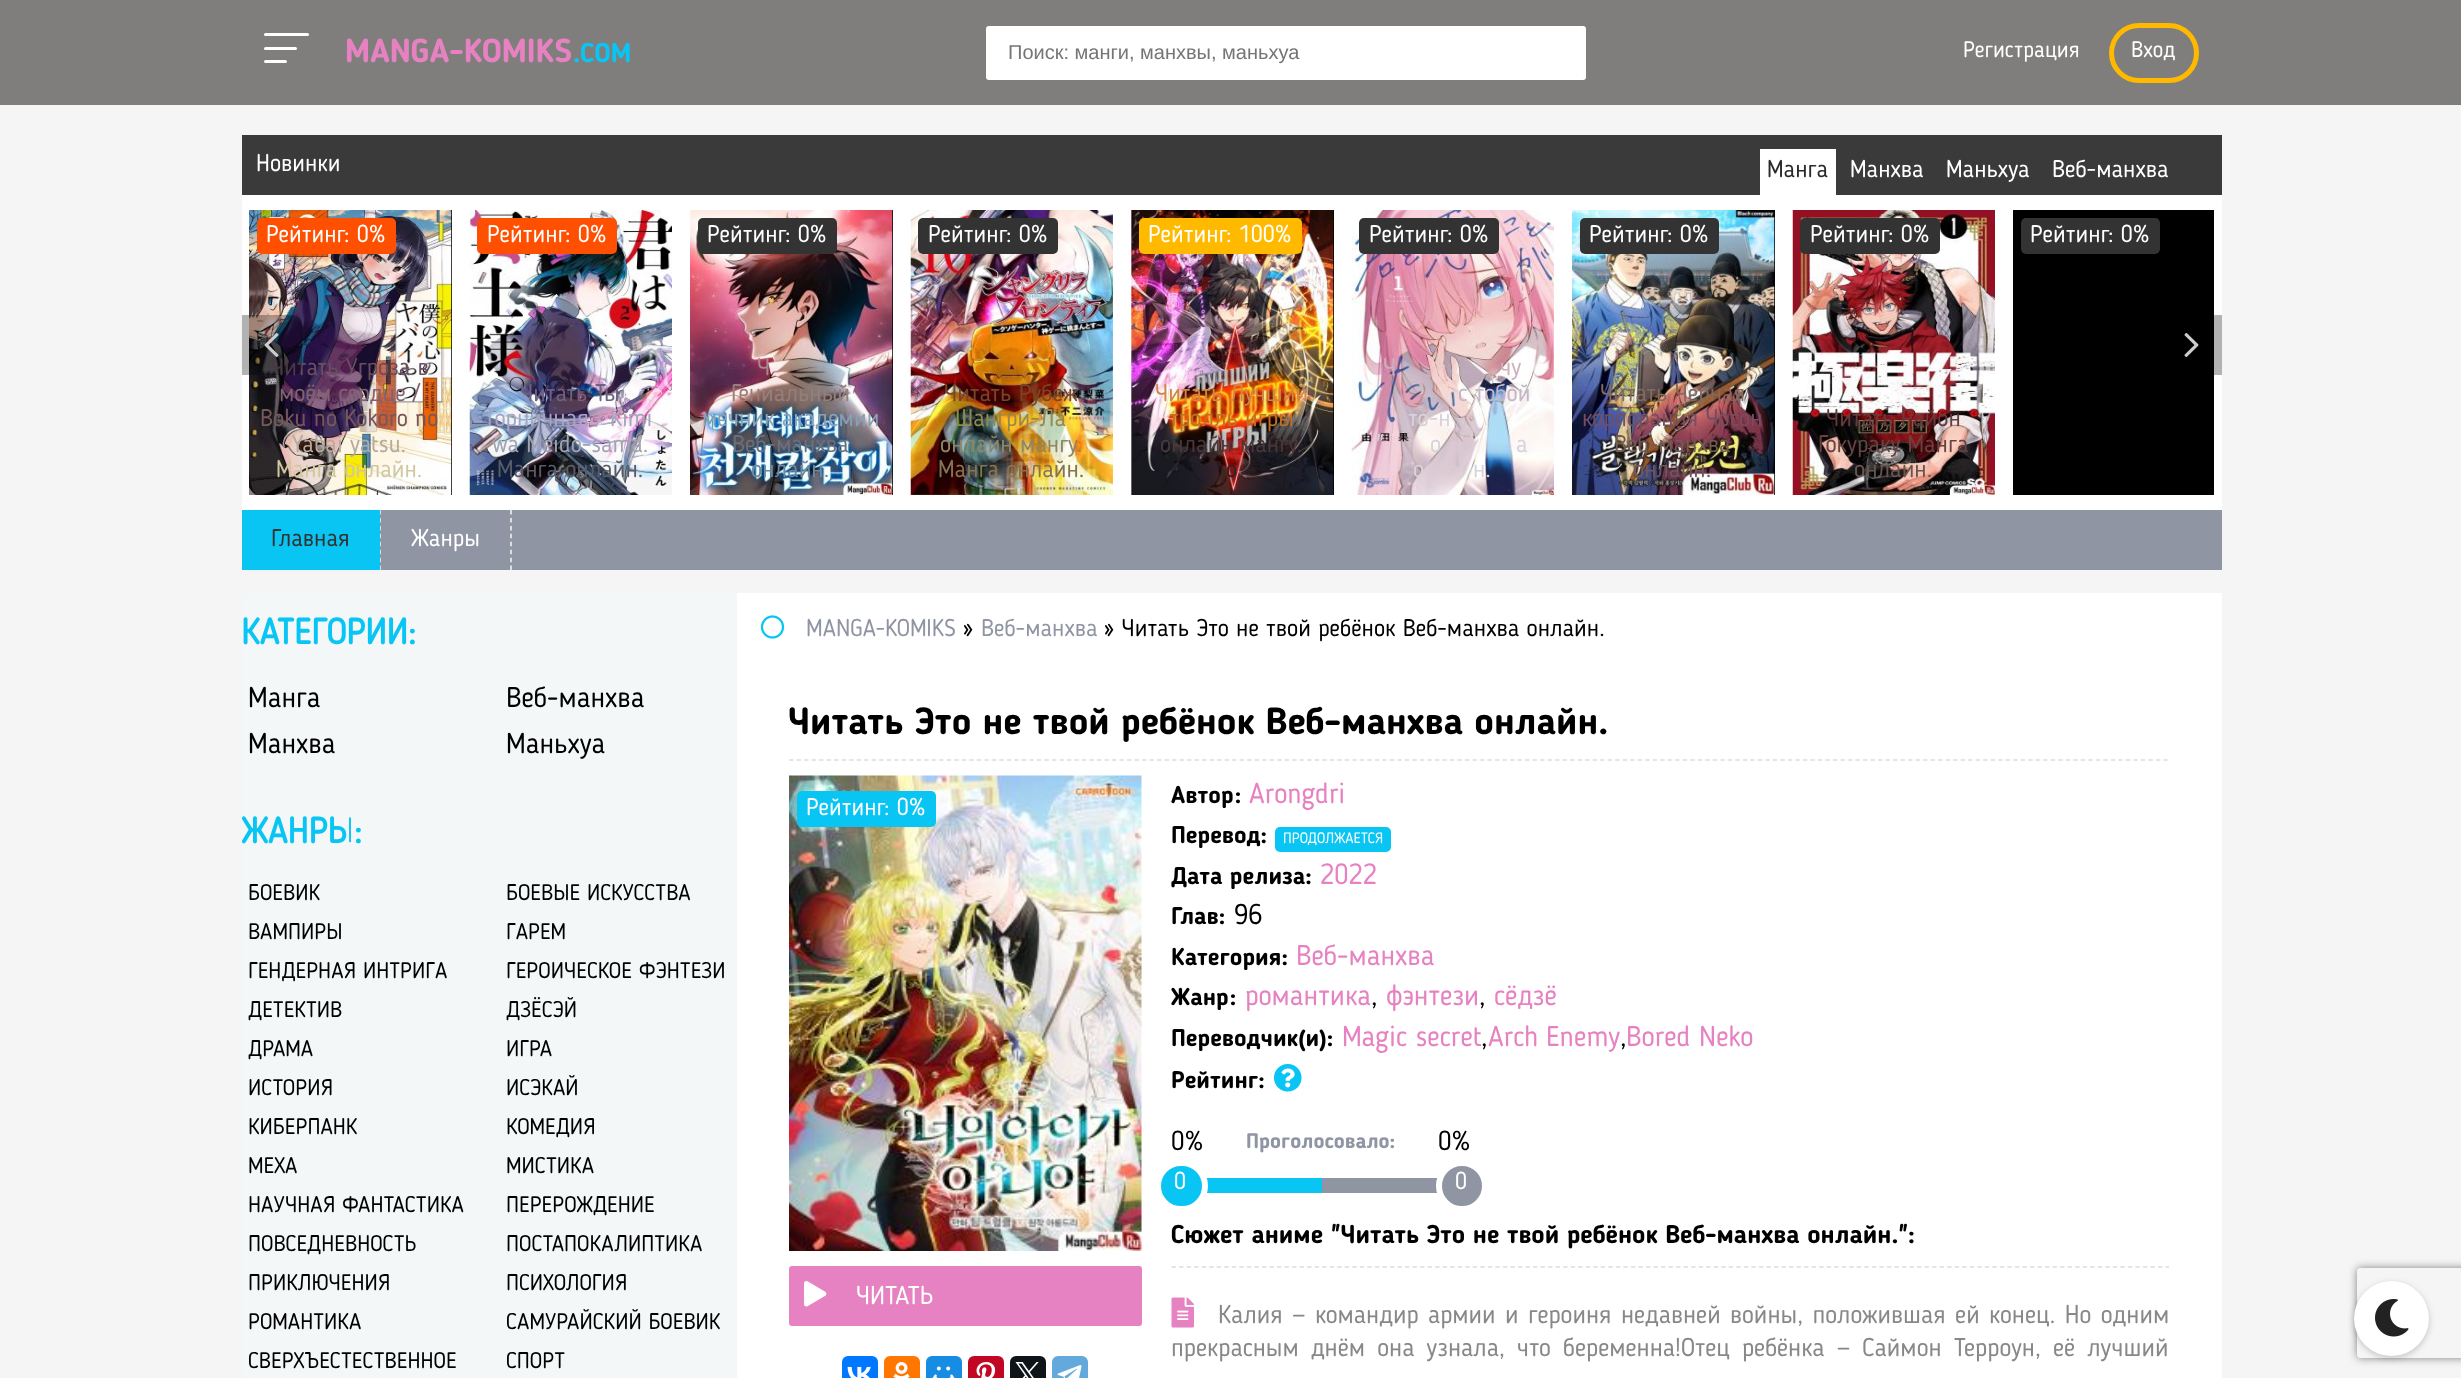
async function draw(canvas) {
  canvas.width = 2461
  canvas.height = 1378
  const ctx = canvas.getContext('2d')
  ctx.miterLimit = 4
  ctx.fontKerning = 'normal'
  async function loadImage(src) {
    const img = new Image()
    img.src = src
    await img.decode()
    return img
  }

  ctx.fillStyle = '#f5f5f5'
  ctx.fillRect(0, 0, 2461, 1378)
  ctx.fillStyle = '#7f7e7c'
  ctx.fillRect(0, 0, 2461, 105)
  ctx.fillStyle = '#fff'
  ctx.beginPath()
  ctx.roundRect(264, 33, 45, 3, 1.5)
  ctx.fill()
  ctx.beginPath()
  ctx.roundRect(264, 47, 33, 3, 1.5)
  ctx.fill()
  ctx.beginPath()
  ctx.roundRect(264, 60, 23, 3, 1.5)
  ctx.fill()
  ctx.font = 'bold 33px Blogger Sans'
  ctx.fillStyle = '#e782c2'
  ctx.fillText('MANGA-KOMIKS', 345, 62)
  ctx.font = 'bold 27px Blogger Sans'
  ctx.fillStyle = '#08c5f4'
  ctx.fillText('.COM', 573, 62)
  ctx.fillStyle = '#fff'
  ctx.beginPath()
  ctx.roundRect(986, 26, 600, 54, 3)
  ctx.fill()
  ctx.font = '20px Liberation Sans'
  ctx.fillStyle = '#757575'
  ctx.fillText('Поиск: манги, манхвы, маньхуа', 1008, 59)
  ctx.font = '22.5px Blogger Sans'
  ctx.fillStyle = '#fff'
  ctx.fillText('Регистрация', 1963, 57)
  ctx.beginPath()
  ctx.roundRect(2111.5, 25.5, 85, 55, 27.5)
  ctx.strokeStyle = '#ffba00'
  ctx.lineWidth = 5
  ctx.stroke()
  ctx.fillText('Вход', 2131, 57)
  ctx.fillStyle = '#3a3a3a'
  ctx.fillRect(242, 135, 1980, 60)
  ctx.font = '24px Blogger Sans'
  ctx.fillStyle = '#fff'
  ctx.fillText('Новинки', 256, 171)
  ctx.fillRect(1760, 149, 76, 46)
  ctx.fillStyle = '#2a2a2a'
  ctx.fillText('Манга', 1767, 177)
  ctx.fillStyle = '#fff'
  ctx.fillText('Манхва', 1850, 177)
  ctx.fillText('Маньхуа', 1946, 177)
  ctx.fillText('Веб-манхва', 2052, 177)
  ctx.fillRect(242, 195, 1980, 315)
  ctx.fillStyle = '#000'
  ctx.fillRect(451, 210, 1, 285)
  ctx.drawImage(await loadImage('image0.png'), 249, 210, 203, 285)
  ctx.fillStyle = '#ff4f00'
  ctx.beginPath()
  ctx.roundRect(257, 218, 139, 36, 5)
  ctx.fill()
  ctx.fillStyle = '#fff'
  ctx.fillText('Рейтинг: 0%', 266, 242)
  ctx.fillStyle = '#684f63'
  ctx.fillText('Читать Угроза в', 271, 375)
  ctx.fillStyle = '#826271'
  ctx.fillText('моём сердце /', 279, 401)
  ctx.fillStyle = '#775759'
  ctx.fillText('Boku no Kokoro no', 260, 426)
  ctx.fillStyle = '#b5aa9f'
  ctx.fillText('Yabai yatsu.', 292, 452)
  ctx.fillStyle = '#d1c8a1'
  ctx.fillText('Манга онлайн.', 276, 477)
  ctx.drawImage(await loadImage('image1.png'), 469, 210, 203, 285)
  ctx.fillStyle = '#ff4f00'
  ctx.beginPath()
  ctx.roundRect(477, 218, 140, 36, 5)
  ctx.fill()
  ctx.fillStyle = '#fff'
  ctx.fillText('Рейтинг: 0%', 487, 242)
  ctx.fillStyle = '#6d627f'
  ctx.fillText('Читать Ты', 520, 401)
  ctx.fillStyle = '#aba4c0'
  ctx.fillText('Горничная / Kimi', 487, 426)
  ctx.fillStyle = '#a1a3b2'
  ctx.fillText('wa Meido-sama.', 492, 452)
  ctx.fillStyle = '#565c69'
  ctx.fillText('Манга онлайн.', 497, 477)
  ctx.fillStyle = '#000'
  ctx.fillRect(892, 210, 1, 285)
  ctx.drawImage(await loadImage('image2.png'), 690, 210, 203, 285)
  ctx.fillStyle = '#333'
  ctx.beginPath()
  ctx.roundRect(698, 218, 139, 36, 5)
  ctx.fill()
  ctx.fillStyle = '#fff'
  ctx.fillText('Рейтинг: 0%', 707, 242)
  ctx.fillStyle = '#a8898c'
  ctx.fillText('Ч', 757, 375)
  ctx.fillStyle = '#967e7c'
  ctx.fillText('Гениальный', 731, 401)
  ctx.fillStyle = '#88a0b6'
  ctx.fillText('мечник академии', 702, 426)
  ctx.fillStyle = '#657181'
  ctx.fillText('Веб-манхва', 732, 452)
  ctx.fillStyle = '#6c89a0'
  ctx.fillText('онлайн.', 751, 477)
  ctx.drawImage(await loadImage('image3.png'), 910, 210, 203, 285)
  ctx.fillStyle = '#333'
  ctx.beginPath()
  ctx.roundRect(918, 218, 140, 36, 5)
  ctx.fill()
  ctx.fillStyle = '#fff'
  ctx.fillText('Рейтинг: 0%', 928, 242)
  ctx.fillStyle = '#7c4329'
  ctx.fillText('Читать Рубеж', 944, 401)
  ctx.fillStyle = '#95894c'
  ctx.fillText('Шангри-Ла', 955, 426)
  ctx.fillStyle = '#8d8768'
  ctx.fillText('онлайн мангу.', 940, 452)
  ctx.fillStyle = '#867351'
  ctx.fillText('Манга онлайн.', 938, 477)
  ctx.fillStyle = '#000'
  ctx.fillRect(1333, 210, 1, 285)
  ctx.drawImage(await loadImage('image4.png'), 1131, 210, 203, 285)
  ctx.fillStyle = '#ffba00'
  ctx.beginPath()
  ctx.roundRect(1139, 218, 163, 36, 5)
  ctx.fill()
  ctx.fillStyle = '#fff'
  ctx.fillText('Рейтинг: 100%', 1148, 242)
  ctx.fillStyle = '#d38546'
  ctx.fillText('Читать Лучший', 1155, 401)
  ctx.fillStyle = '#c07024'
  ctx.fillText('тролль игры', 1169, 426)
  ctx.fillStyle = '#4a373a'
  ctx.fillText('онлайн мангу.', 1160, 452)
  ctx.fillStyle = '#312228'
  ctx.fillText('о', 1226, 477)
  ctx.drawImage(await loadImage('image5.png'), 1351, 210, 203, 285)
  ctx.fillStyle = '#333'
  ctx.beginPath()
  ctx.roundRect(1359, 218, 140, 36, 5)
  ctx.fill()
  ctx.fillStyle = '#fff'
  ctx.fillText('Рейтинг: 0%', 1369, 242)
  ctx.fillStyle = '#cfb0bd'
  ctx.fillText('Ч', 1383, 375)
  ctx.fillText('чу', 1500, 375)
  ctx.fillStyle = '#c4b6c6'
  ctx.fillText('с тобой', 1458, 401)
  ctx.fillStyle = '#d7d3db'
  ctx.fillText('то-н', 1408, 426)
  ctx.fillText('"', 1376, 452)
  ctx.fillText('о', 1430, 452)
  ctx.fillText('а', 1516, 452)
  ctx.fillText('о', 1413, 477)
  ctx.fillText('н.', 1473, 477)
  ctx.fillStyle = '#000'
  ctx.fillRect(1774, 210, 1, 285)
  ctx.drawImage(await loadImage('image6.png'), 1572, 210, 203, 285)
  ctx.fillStyle = '#333'
  ctx.beginPath()
  ctx.roundRect(1580, 218, 139, 36, 5)
  ctx.fill()
  ctx.fillStyle = '#fff'
  ctx.fillText('Рейтинг: 0%', 1589, 242)
  ctx.fillStyle = '#84695d'
  ctx.fillText('Читать Черная', 1600, 401)
  ctx.fillStyle = '#744e61'
  ctx.fillText('корпорация Чосон', 1582, 426)
  ctx.fillStyle = '#725b4f'
  ctx.fillText('Веб-манхва', 1614, 452)
  ctx.fillStyle = '#6d585c'
  ctx.fillText('онлайн.', 1633, 477)
  ctx.drawImage(await loadImage('image7.png'), 1792, 210, 203, 285)
  ctx.fillStyle = '#333'
  ctx.beginPath()
  ctx.roundRect(1800, 218, 140, 36, 5)
  ctx.fill()
  ctx.fillStyle = '#fff'
  ctx.fillText('Рейтинг: 0%', 1810, 242)
  ctx.fillStyle = '#6a393a'
  ctx.fillText('Читать Район', 1826, 426)
  ctx.fillStyle = '#674241'
  ctx.fillText('Гокураку Манга', 1818, 452)
  ctx.fillStyle = '#6b554f'
  ctx.fillText('онлайн.', 1854, 477)
  ctx.fillStyle = '#000'
  ctx.fillRect(2013, 210, 201, 285)
  ctx.fillStyle = '#333'
  ctx.beginPath()
  ctx.roundRect(2021, 218, 139, 36, 5)
  ctx.fill()
  ctx.fillStyle = '#fff'
  ctx.fillText('Рейтинг: 0%', 2030, 242)
  ctx.fillStyle = '#0000004d'
  ctx.beginPath()
  ctx.roundRect(242, 315, 60, 60, [0, 9, 9, 0])
  ctx.fill()
  ctx.drawImage(await loadImage('image8.png'), 264, 333, 15, 24)
  ctx.beginPath()
  ctx.roundRect(2162, 315, 60, 60, [9, 0, 0, 9])
  ctx.fill()
  ctx.drawImage(await loadImage('image9.png'), 2184, 333, 15, 24)
  ctx.fillStyle = '#8f95a3'
  ctx.fillRect(380, 510, 1842, 60)
  ctx.beginPath()
  ctx.moveTo(380, 510)
  ctx.lineTo(380, 570)
  ctx.strokeStyle = '#f3f7f8'
  ctx.lineWidth = 1.5
  ctx.setLineDash([4.5, 3.44])
  ctx.stroke()
  ctx.fillStyle = '#08c5f4'
  ctx.fillRect(242, 510, 138, 60)
  ctx.fillStyle = '#333'
  ctx.fillText('Главная', 271, 546)
  ctx.beginPath()
  ctx.moveTo(511, 510)
  ctx.lineTo(511, 570)
  ctx.stroke()
  ctx.fillStyle = '#fff'
  ctx.fillText('Жанры', 411, 546)
  ctx.fillRect(737, 593, 1485, 785)
  ctx.fillStyle = '#f3f7f8'
  ctx.fillRect(242, 593, 495, 785)
  ctx.font = 'bold 36px "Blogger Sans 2"'
  ctx.fillStyle = '#08c5f4'
  ctx.fillText('КАТЕГОРИИ:', 241, 644)
  ctx.font = '28.5px Blogger Sans'
  ctx.fillStyle = '#000'
  ctx.fillText('Манга', 248, 707)
  ctx.fillText('Манхва', 248, 753)
  ctx.fillText('Веб-манхва', 506, 707)
  ctx.fillText('Маньхуа', 506, 753)
  ctx.font = 'bold 36px "Blogger Sans 2"'
  ctx.fillStyle = '#08c5f4'
  ctx.fillText('ЖАНРЫ:', 241, 843)
  ctx.font = '22.5px Blogger Sans'
  ctx.fillStyle = '#000'
  ctx.fillText('БОЕВИК', 248, 900)
  ctx.fillText('БОЕВЫЕ ИСКУССТВА', 506, 900)
  ctx.fillText('ВАМПИРЫ', 248, 939)
  ctx.fillText('ГАРЕМ', 506, 939)
  ctx.fillText('ГЕНДЕРНАЯ ИНТРИГА', 248, 978)
  ctx.fillText('ГЕРОИЧЕСКОЕ ФЭНТЕЗИ', 506, 978)
  ctx.fillText('ДЕТЕКТИВ', 248, 1017)
  ctx.fillText('ДЗЁСЭЙ', 506, 1017)
  ctx.fillText('ДРАМА', 248, 1056)
  ctx.fillText('ИГРА', 506, 1056)
  ctx.fillText('ИСТОРИЯ', 248, 1095)
  ctx.fillText('ИСЭКАЙ', 506, 1095)
  ctx.fillText('КИБЕРПАНК', 248, 1134)
  ctx.fillText('КОМЕДИЯ', 506, 1134)
  ctx.fillText('МЕХА', 248, 1173)
  ctx.fillText('МИСТИКА', 506, 1173)
  ctx.fillText('НАУЧНАЯ ФАНТАСТИКА', 248, 1212)
  ctx.fillText('ПЕРЕРОЖДЕНИЕ', 506, 1212)
  ctx.fillText('ПОВСЕДНЕВНОСТЬ', 248, 1251)
  ctx.fillText('ПОСТАПОКАЛИПТИКА', 506, 1251)
  ctx.fillText('ПРИКЛЮЧЕНИЯ', 248, 1290)
  ctx.fillText('ПСИХОЛОГИЯ', 506, 1290)
  ctx.fillText('РОМАНТИКА', 248, 1329)
  ctx.fillText('САМУРАЙСКИЙ БОЕВИК', 506, 1329)
  ctx.fillText('СВЕРХЪЕСТЕСТВЕННОЕ', 248, 1368)
  ctx.fillText('СПОРТ', 506, 1368)
  ctx.drawImage(await loadImage('image10.png'), 760, 615, 25, 24)
  ctx.font = '24px Blogger Sans'
  ctx.fillStyle = '#8f95a3'
  ctx.fillText('MANGA-KOMIKS', 806, 636)
  ctx.fillStyle = '#000'
  ctx.fillText('»', 963, 636)
  ctx.fillStyle = '#8f95a3'
  ctx.fillText('Веб-манхва', 981, 636)
  ctx.fillStyle = '#000'
  ctx.fillText('» Читать Это не твой ребёнок Веб-манхва онлайн.', 1104, 636)
  ctx.beginPath()
  ctx.moveTo(789, 760)
  ctx.lineTo(2169, 760)
  ctx.strokeStyle = '#dedddd'
  ctx.setLineDash([4.5, 3.01])
  ctx.stroke()
  ctx.font = 'bold 37.5px Blogger Sans'
  ctx.fillText('Читать Это не твой ребёнок Веб-манхва онлайн.', 788, 734)
  ctx.drawImage(await loadImage('image11.png'), 789, 775, 353, 476)
  ctx.fillStyle = '#08c5f4'
  ctx.beginPath()
  ctx.roundRect(797, 791, 139, 36, 5)
  ctx.fill()
  ctx.font = '24px Blogger Sans'
  ctx.fillStyle = '#fff'
  ctx.fillText('Рейтинг: 0%', 806, 815)
  ctx.fillStyle = '#e782c2'
  ctx.beginPath()
  ctx.roundRect(789, 1266, 353, 60, 3)
  ctx.fill()
  ctx.drawImage(await loadImage('image12.png'), 804, 1281, 23, 26)
  ctx.font = '25.5px Blogger Sans'
  ctx.fillStyle = '#fff'
  ctx.fillText('ЧИТАТЬ', 856, 1304)
  ctx.fillStyle = '#07f'
  ctx.beginPath()
  ctx.roundRect(842, 1356, 36, 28, 6)
  ctx.fill()
  ctx.drawImage(await loadImage('image13.png'), 847, 1366, 24, 12)
  ctx.fillStyle = '#f70'
  ctx.beginPath()
  ctx.roundRect(884, 1356, 36, 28, 6)
  ctx.fill()
  ctx.drawImage(await loadImage('image14.png'), 893, 1362, 17, 16)
  ctx.fillStyle = '#168de2'
  ctx.beginPath()
  ctx.roundRect(926, 1356, 36, 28, 6)
  ctx.fill()
  ctx.drawImage(await loadImage('image15.png'), 932, 1366, 23, 12)
  ctx.fillStyle = '#c20724'
  ctx.beginPath()
  ctx.roundRect(968, 1356, 36, 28, 6)
  ctx.fill()
  ctx.drawImage(await loadImage('image16.png'), 976, 1362, 20, 16)
  ctx.fillStyle = '#0f1419'
  ctx.beginPath()
  ctx.roundRect(1010, 1356, 36, 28, 6)
  ctx.fill()
  ctx.drawImage(await loadImage('image17.png'), 1015, 1362, 24, 16)
  ctx.fillStyle = '#64a9dc'
  ctx.beginPath()
  ctx.roundRect(1052, 1356, 36, 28, 6)
  ctx.fill()
  ctx.drawImage(await loadImage('image18.png'), 1057, 1365, 25, 13)
  ctx.font = 'bold 24px Blogger Sans'
  ctx.fillStyle = '#000'
  ctx.fillText('Автор:', 1171, 803)
  ctx.font = '28.5px Blogger Sans'
  ctx.fillStyle = '#e782c2'
  ctx.fillText('Arongdri', 1249, 803)
  ctx.font = 'bold 24px Blogger Sans'
  ctx.fillStyle = '#000'
  ctx.fillText('Перевод:', 1171, 843)
  ctx.fillStyle = '#08c5f4'
  ctx.beginPath()
  ctx.roundRect(1275, 827, 116, 25, 5)
  ctx.fill()
  ctx.font = '15px Blogger Sans'
  ctx.fillStyle = '#fff'
  ctx.fillText('ПРОДОЛЖАЕТСЯ', 1283, 843)
  ctx.font = 'bold 24px Blogger Sans'
  ctx.fillStyle = '#000'
  ctx.fillText('Дата релиза:', 1171, 884)
  ctx.font = '28.5px Blogger Sans'
  ctx.fillStyle = '#e782c2'
  ctx.fillText('2022', 1320, 884)
  ctx.font = 'bold 24px Blogger Sans'
  ctx.fillStyle = '#000'
  ctx.fillText('Глав:', 1171, 924)
  ctx.font = '28.5px Blogger Sans'
  ctx.fillText('96', 1234, 924)
  ctx.font = 'bold 24px Blogger Sans'
  ctx.fillText('Категория:', 1171, 965)
  ctx.font = '28.5px Blogger Sans'
  ctx.fillStyle = '#e782c2'
  ctx.fillText('Веб-манхва', 1296, 965)
  ctx.font = 'bold 24px Blogger Sans'
  ctx.fillStyle = '#000'
  ctx.fillText('Жанр:', 1171, 1005)
  ctx.font = '28.5px Blogger Sans'
  ctx.fillStyle = '#e782c2'
  ctx.fillText('романтика', 1245, 1005)
  ctx.fillStyle = '#000'
  ctx.fillText(',', 1371, 1005)
  ctx.fillStyle = '#e782c2'
  ctx.fillText('фэнтези', 1386, 1005)
  ctx.fillStyle = '#000'
  ctx.fillText(',', 1479, 1005)
  ctx.fillStyle = '#e782c2'
  ctx.fillText('сёдзё', 1494, 1005)
  ctx.font = 'bold 24px Blogger Sans'
  ctx.fillStyle = '#000'
  ctx.fillText('Переводчик(и):', 1171, 1046)
  ctx.font = '28.5px Blogger Sans'
  ctx.fillStyle = '#e782c2'
  ctx.fillText('Magic secret', 1342, 1046)
  ctx.fillStyle = '#000'
  ctx.fillText(',', 1481, 1046)
  ctx.wordSpacing = '-1px'
  ctx.fillStyle = '#e782c2'
  ctx.fillText('Arch Enemy', 1488, 1046)
  ctx.wordSpacing = '0px'
  ctx.fillStyle = '#000'
  ctx.fillText(',', 1620, 1046)
  ctx.fillStyle = '#e782c2'
  ctx.fillText('Bored Neko', 1626, 1046)
  ctx.font = 'bold 24px Blogger Sans'
  ctx.fillStyle = '#000'
  ctx.fillText('Рейтинг:', 1171, 1088)
  ctx.drawImage(await loadImage('image19.png'), 1273, 1063, 29, 29)
  ctx.font = '27px Blogger Sans'
  ctx.fillText('0%', 1171, 1150)
  ctx.font = 'bold 21px Blogger Sans'
  ctx.fillStyle = '#8f95a3'
  ctx.fillText('Проголосовало:', 1246, 1148)
  ctx.font = '27px Blogger Sans'
  ctx.fillStyle = '#000'
  ctx.fillText('0%', 1438, 1150)
  ctx.fillStyle = '#08c5f4'
  ctx.fillRect(1206, 1178, 116, 15)
  ctx.beginPath()
  ctx.roundRect(1158, 1163, 47, 46, 23)
  ctx.fill()
  ctx.strokeStyle = '#fff'
  ctx.lineWidth = 6
  ctx.setLineDash([])
  ctx.stroke()
  ctx.font = '24px Blogger Sans'
  ctx.fillStyle = '#fff'
  ctx.fillText('0', 1174, 1189)
  ctx.fillStyle = '#8f95a3'
  ctx.fillRect(1322, 1178, 116, 15)
  ctx.beginPath()
  ctx.arc(1462, 1186, 23, 0, 2 * Math.PI)
  ctx.fill()
  ctx.stroke()
  ctx.fillStyle = '#fff'
  ctx.fillText('0', 1455, 1189)
  ctx.beginPath()
  ctx.moveTo(1171.5, 1267)
  ctx.lineTo(2169, 1267)
  ctx.strokeStyle = '#dedddd'
  ctx.lineWidth = 1.5
  ctx.setLineDash([4.5, 3.03])
  ctx.stroke()
  ctx.font = 'bold 25.5px Blogger Sans'
  ctx.fillStyle = '#000'
  ctx.fillText('Сюжет аниме "Читать Это не твой ребёнок Веб-манхва онлайн.":', 1171, 1243)
  ctx.drawImage(await loadImage('image20.png'), 1171, 1297, 23, 31)
  ctx.wordSpacing = '1.75px'
  ctx.font = '25.5px Blogger Sans'
  ctx.fillStyle = '#888'
  ctx.fillText('Калия — командир армии и героиня недавней войны, положившая ей конец. Но одним', 1218, 1323)
  ctx.wordSpacing = '4.5px'
  ctx.fillText('прекрасным днём она узнала, что беременна!Отец ребёнка — Саймон Терроун, её лучший', 1171, 1356)
  ctx.save()
  ctx.beginPath()
  ctx.moveTo(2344, 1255)
  ctx.lineTo(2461, 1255)
  ctx.lineTo(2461, 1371)
  ctx.lineTo(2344, 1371)
  ctx.closePath()
  ctx.moveTo(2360, 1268)
  ctx.lineTo(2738, 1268)
  ctx.bezierCurveTo(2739.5, 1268, 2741, 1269.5, 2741, 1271)
  ctx.lineTo(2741, 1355)
  ctx.bezierCurveTo(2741, 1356.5, 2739.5, 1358, 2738, 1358)
  ctx.lineTo(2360, 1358)
  ctx.bezierCurveTo(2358.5, 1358, 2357, 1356.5, 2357, 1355)
  ctx.lineTo(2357, 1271)
  ctx.bezierCurveTo(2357, 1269.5, 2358.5, 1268, 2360, 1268)
  ctx.closePath()
  ctx.clip('evenodd')
  ctx.fillStyle = '#808080'
  ctx.filter = 'blur(4px)'
  ctx.beginPath()
  ctx.roundRect(2357, 1268, 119, 90, 3)
  ctx.fill()
  ctx.filter = 'none'
  ctx.restore()
  ctx.fillStyle = '#00000033'
  ctx.filter = 'blur(3px)'
  ctx.beginPath()
  ctx.roundRect(2354, 1283, 75, 75, 37.5)
  ctx.fill()
  ctx.filter = 'none'
  ctx.fillStyle = '#fff'
  ctx.beginPath()
  ctx.arc(2391.5, 1318.5, 37.5, 0, 2 * Math.PI)
  ctx.fill()
  ctx.drawImage(await loadImage('image21.png'), 2375, 1299, 34, 38)
}

draw(document.querySelector('canvas'))
